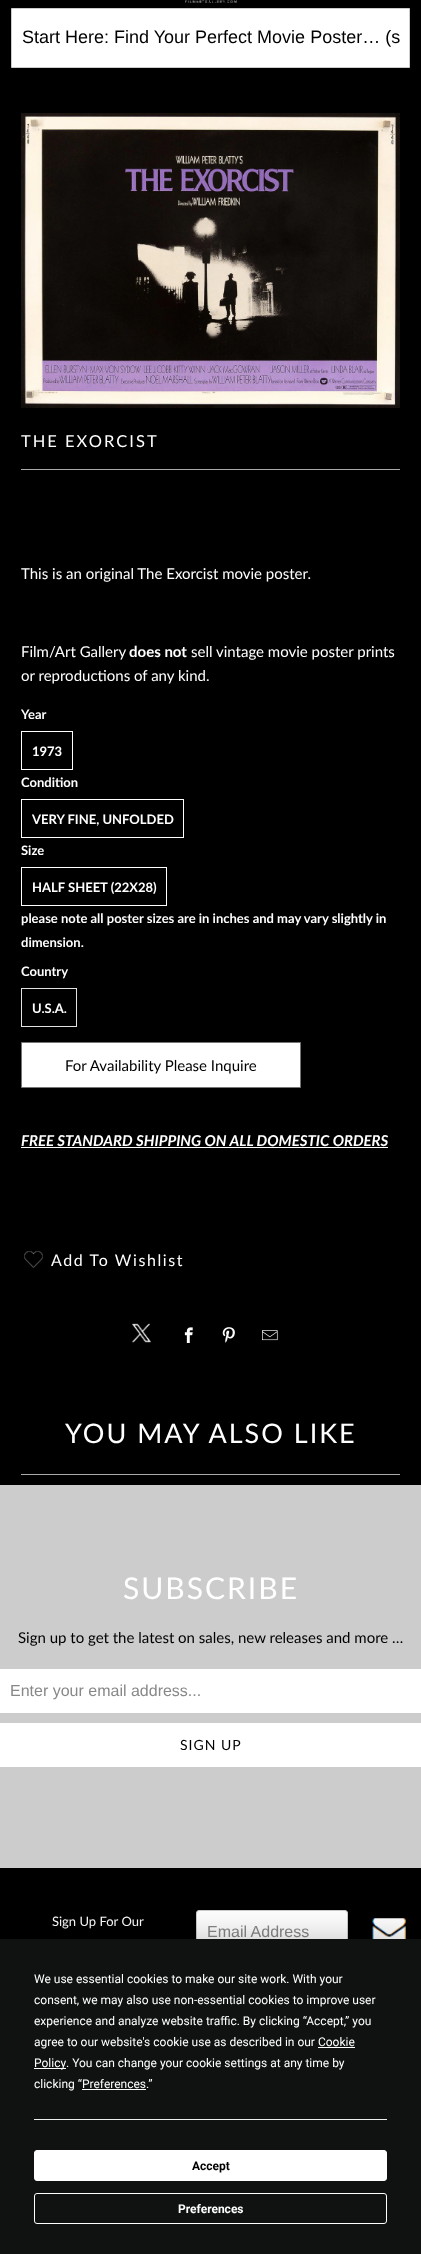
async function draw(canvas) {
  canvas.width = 421
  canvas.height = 2254
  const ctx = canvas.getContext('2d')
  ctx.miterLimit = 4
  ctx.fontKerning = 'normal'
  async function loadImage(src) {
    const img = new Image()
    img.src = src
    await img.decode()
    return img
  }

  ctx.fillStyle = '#000'
  ctx.fillRect(0, 0, 421, 2254)
  ctx.drawImage(await loadImage('image0.png'), 185, 0, 52, 3)
  ctx.fillStyle = '#fff'
  ctx.beginPath()
  ctx.rect(11.5, 8.5, 398, 59)
  ctx.fill()
  ctx.strokeStyle = '#ccc'
  ctx.stroke()
  ctx.font = '18px Liberation Sans'
  ctx.fillStyle = '#000'
  ctx.fillText('Start Here: Find Your Perfect Movie Poster… (s', 22, 43)
  ctx.drawImage(await loadImage('image1.png'), 21, 113, 379, 295)
  ctx.letterSpacing = '2px'
  ctx.font = '16.5px Lato'
  ctx.fillStyle = '#fff'
  ctx.fillText('THE EXORCIST', 21, 447)
  ctx.fillStyle = '#aaa'
  ctx.fillRect(21, 469, 379, 1)
  ctx.letterSpacing = '0px'
  ctx.font = '15px Lato'
  ctx.fillStyle = '#fff'
  ctx.fillText('This is an original The Exorcist movie poster.', 21, 579)
  ctx.fillText('Film/Art Gallery', 21, 657)
  ctx.font = 'bold 15px Lato'
  ctx.fillText('does not', 129, 657)
  ctx.font = '15px Lato'
  ctx.fillText('sell vintage movie poster prints', 191, 657)
  ctx.fillText('or reproductions of any kind.', 21, 681)
  ctx.font = 'bold 13px Lato'
  ctx.fillText('Year', 21, 719)
  ctx.strokeStyle = '#fff'
  ctx.strokeRect(21.5, 731.5, 51, 38)
  ctx.fillText('1973', 32, 756)
  ctx.fillText('Condition', 21, 787)
  ctx.strokeRect(21.5, 799.5, 162, 38)
  ctx.fillText('VERY FINE, UNFOLDED', 32, 824)
  ctx.fillText('Size', 21, 855)
  ctx.strokeRect(21.5, 867.5, 145, 38)
  ctx.fillText('HALF SHEET (22X28)', 32, 892)
  ctx.fillText('please note all poster sizes are in inches and may vary slightly in', 21, 923)
  ctx.fillText('dimension.', 21, 947)
  ctx.fillText('Country', 21, 976)
  ctx.strokeStyle = '#e2e2e2'
  ctx.strokeRect(21.5, 988.5, 55, 38)
  ctx.fillText('U.S.A.', 32, 1013)
  ctx.beginPath()
  ctx.rect(21.5, 1042.5, 279, 45)
  ctx.fill()
  ctx.strokeStyle = '#777474'
  ctx.stroke()
  ctx.font = '15px Lato'
  ctx.fillStyle = '#000'
  ctx.fillText('For Availability Please Inquire', 65, 1071)
  ctx.font = 'italic bold 15px Lato'
  ctx.fillStyle = '#fff'
  ctx.fillText('FREE STANDARD SHIPPING ON ALL DOMESTIC ORDERS', 21, 1146)
  ctx.fillRect(21, 1147, 367, 1)
  ctx.drawImage(await loadImage('image2.png'), 24, 1251, 19, 17)
  ctx.letterSpacing = '1.6px'
  ctx.font = '16px Lato'
  ctx.fillText('Add To Wishlist', 51, 1266)
  ctx.drawImage(await loadImage('image3.png'), 132, 1323, 19, 20)
  ctx.drawImage(await loadImage('image4.png'), 184, 1327, 9, 16)
  ctx.drawImage(await loadImage('image5.png'), 222, 1327, 13, 16)
  ctx.drawImage(await loadImage('image6.png'), 262, 1330, 16, 11)
  ctx.letterSpacing = '2px'
  ctx.font = '27px Lato'
  ctx.fillText('YOU MAY ALSO LIKE', 65, 1443)
  ctx.fillStyle = '#aaa'
  ctx.fillRect(21, 1474, 379, 1)
  ctx.fillStyle = '#ccc'
  ctx.fillRect(0, 1485, 421, 383)
  ctx.font = '30px Lato'
  ctx.fillStyle = '#fff'
  ctx.fillText('SUBSCRIBE', 123, 1599)
  ctx.letterSpacing = '0px'
  ctx.font = '15px Lato'
  ctx.fillStyle = '#000'
  ctx.fillText('Sign up to get the latest on sales, new releases and more …', 18, 1643)
  ctx.fillStyle = '#fff'
  ctx.fillRect(0, 1669, 421, 44)
  ctx.font = '16px Liberation Sans'
  ctx.fillStyle = '#888'
  ctx.fillText('Enter your email address...', 10, 1696)
  ctx.fillStyle = '#fff'
  ctx.fillRect(0, 1723, 421, 44)
  ctx.letterSpacing = '1px'
  ctx.font = '14px Lato'
  ctx.fillStyle = '#000'
  ctx.fillText('SIGN UP', 180, 1750)
  ctx.letterSpacing = '0px'
  ctx.font = '13px Lato'
  ctx.fillStyle = '#fff'
  ctx.fillText('Sign Up For Our', 52, 1926)
  ctx.beginPath()
  ctx.roundRect(196.5, 1910.5, 151, 43, 2.5)
  ctx.fill()
  ctx.strokeStyle = '#ccc'
  ctx.stroke()
  ctx.font = '16px Liberation Sans'
  ctx.fillStyle = '#888'
  ctx.fillText('Email Address', 207, 1937)
  ctx.drawImage(await loadImage('image7.png'), 372, 1918, 34, 21)
  ctx.fillStyle = '#00000040'
  ctx.filter = 'blur(17.5px)'
  ctx.beginPath()
  ctx.rect(0, 1939, 421, 315)
  ctx.fill()
  ctx.filter = 'none'
  ctx.fillStyle = '#101212'
  ctx.fillRect(0, 1939, 421, 315)
  ctx.font = '12px Roboto'
  ctx.fillStyle = '#fff'
  ctx.fillText('We use essential cookies to make our site work. With your', 34, 1983)
  ctx.fillText('consent, we may also use non-essential cookies to improve user', 34, 2004)
  ctx.fillText('experience and analyze website traffic. By clicking “Accept,” you', 34, 2025)
  ctx.fillText('agree to our website\'s cookie use as described in our Cookie', 34, 2046)
  ctx.fillRect(34, 2068, 32, 1)
  ctx.fillText('Policy', 34, 2067)
  ctx.fillRect(318, 2047, 37, 1)
  ctx.fillText('. You can change your cookie settings at any time by', 66, 2067)
  ctx.fillText('clicking “Preferences.”', 34, 2088)
  ctx.fillRect(82, 2089, 64, 1)
  ctx.fillStyle = '#ededef'
  ctx.fillRect(34, 2119, 353, 1)
  ctx.fillStyle = '#fff'
  ctx.beginPath()
  ctx.roundRect(34.5, 2150.5, 352, 30, 2.5)
  ctx.fill()
  ctx.strokeStyle = '#fff'
  ctx.stroke()
  ctx.font = 'bold 12px Roboto'
  ctx.fillStyle = '#000'
  ctx.fillText('Accept', 192, 2170)
  ctx.beginPath()
  ctx.roundRect(34.5, 2193.5, 352, 30, 2.5)
  ctx.stroke()
  ctx.fillStyle = '#fff'
  ctx.fillText('Preferences', 178, 2213)
}

draw(document.querySelector('canvas'))
